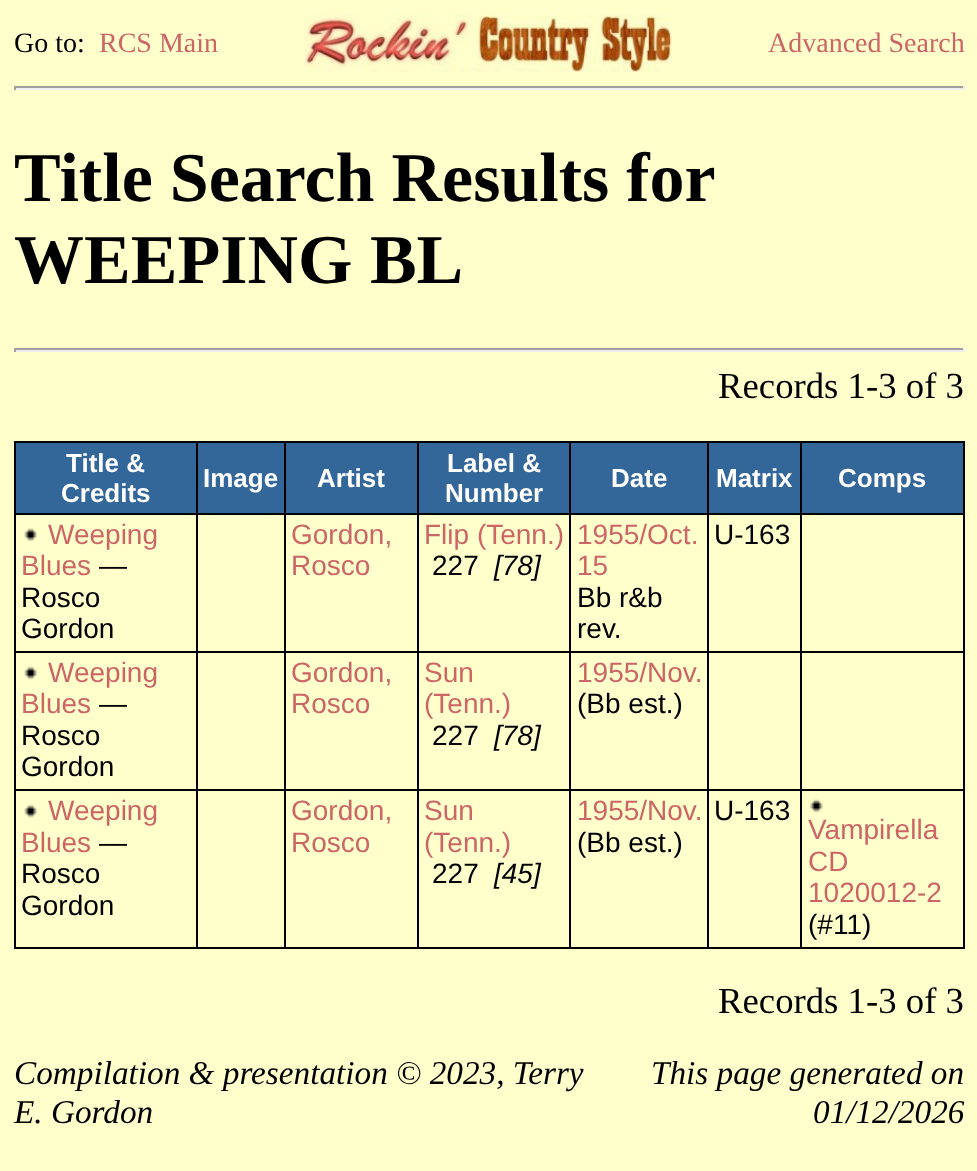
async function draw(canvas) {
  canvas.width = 977
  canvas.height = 1171
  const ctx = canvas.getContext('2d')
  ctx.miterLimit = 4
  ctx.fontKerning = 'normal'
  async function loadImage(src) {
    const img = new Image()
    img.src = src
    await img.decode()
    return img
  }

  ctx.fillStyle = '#ffc'
  ctx.fillRect(0, 0, 977, 1171)
  ctx.font = '28px Liberation Serif'
  ctx.fillStyle = '#000'
  ctx.fillText('Go to:', 14, 52)
  ctx.fillStyle = '#c66'
  ctx.fillText('RCS Main', 99, 52)
  ctx.drawImage(await loadImage('image0.png'), 304, 14, 368, 58)
  ctx.fillText('Advanced Search', 768, 52)
  ctx.fillStyle = '#9f9f9f'
  ctx.fillRect(14, 86, 950, 2)
  ctx.fillStyle = '#eee'
  ctx.fillRect(963, 86, 2, 4)
  ctx.fillRect(14, 88, 950, 2)
  ctx.fillStyle = '#9f9f9f'
  ctx.fillRect(14, 86, 2, 4)
  ctx.wordSpacing = '-0.5px'
  ctx.font = 'bold 70px Liberation Serif'
  ctx.fillStyle = '#000'
  ctx.fillText('Title Search Results for', 14, 201)
  ctx.wordSpacing = '0px'
  ctx.fillText('WEEPING BL', 14, 283)
  ctx.fillStyle = '#9f9f9f'
  ctx.fillRect(14, 348, 950, 2)
  ctx.fillStyle = '#eee'
  ctx.fillRect(963, 348, 2, 4)
  ctx.fillRect(14, 350, 950, 2)
  ctx.fillStyle = '#9f9f9f'
  ctx.fillRect(14, 348, 2, 4)
  ctx.font = '36.75px Liberation Serif'
  ctx.fillStyle = '#000'
  ctx.fillText('Records 1-3 of 3', 718, 398)
  ctx.fillRect(14, 441, 950, 2)
  ctx.fillRect(963, 441, 2, 508)
  ctx.fillRect(14, 947, 950, 2)
  ctx.fillRect(14, 441, 2, 508)
  ctx.fillRect(14, 513, 950, 2)
  ctx.fillRect(14, 651, 950, 2)
  ctx.fillRect(14, 789, 950, 2)
  ctx.fillRect(196, 441, 2, 508)
  ctx.fillRect(284, 441, 2, 508)
  ctx.fillRect(417, 441, 2, 508)
  ctx.fillRect(569, 441, 2, 508)
  ctx.fillRect(800, 441, 2, 508)
  ctx.fillRect(707, 441, 2, 508)
  ctx.fillStyle = '#369'
  ctx.fillRect(16, 443, 180, 70)
  ctx.font = 'bold 26px Liberation Sans'
  ctx.fillStyle = '#fff'
  ctx.fillText('Title &', 66, 472)
  ctx.fillText('Credits', 61, 502)
  ctx.fillStyle = '#369'
  ctx.fillRect(198, 443, 86, 70)
  ctx.fillStyle = '#fff'
  ctx.fillText('Image', 203, 487)
  ctx.fillStyle = '#369'
  ctx.fillRect(286, 443, 131, 70)
  ctx.fillStyle = '#fff'
  ctx.fillText('Artist', 317, 487)
  ctx.fillStyle = '#369'
  ctx.fillRect(419, 443, 150, 70)
  ctx.fillStyle = '#fff'
  ctx.fillText('Label &', 447, 472)
  ctx.fillText('Number', 445, 502)
  ctx.fillStyle = '#369'
  ctx.fillRect(571, 443, 136, 70)
  ctx.fillStyle = '#fff'
  ctx.fillText('Date', 611, 487)
  ctx.fillStyle = '#369'
  ctx.fillRect(709, 443, 91, 70)
  ctx.fillStyle = '#fff'
  ctx.fillText('Matrix', 716, 487)
  ctx.fillStyle = '#369'
  ctx.fillRect(802, 443, 161, 70)
  ctx.fillStyle = '#fff'
  ctx.fillText('Comps', 838, 487)
  ctx.drawImage(await loadImage('image1.png'), 24, 528, 14, 14)
  ctx.font = '28px Liberation Sans'
  ctx.fillStyle = '#c66'
  ctx.fillText('Weeping', 48, 544)
  ctx.fillText('Blues', 21, 575)
  ctx.fillStyle = '#000'
  ctx.fillText('—', 99, 575)
  ctx.fillText('Rosco', 21, 607)
  ctx.fillText('Gordon', 21, 638)
  ctx.fillStyle = '#c66'
  ctx.fillText('Gordon,', 291, 544)
  ctx.fillText('Rosco', 291, 575)
  ctx.fillText('Flip (Tenn.)', 424, 544)
  ctx.fillStyle = '#000'
  ctx.fillText('227', 432, 575)
  ctx.font = 'italic 28px Liberation Sans'
  ctx.fillText('[78]', 494, 575)
  ctx.font = '28px Liberation Sans'
  ctx.fillStyle = '#c66'
  ctx.fillText('1955/Oct.', 577, 544)
  ctx.fillText('15', 577, 575)
  ctx.fillStyle = '#000'
  ctx.fillText('Bb r&b', 577, 607)
  ctx.fillText('rev.', 577, 638)
  ctx.fillText('U-163', 714, 544)
  ctx.drawImage(await loadImage('image2.png'), 24, 666, 14, 14)
  ctx.fillStyle = '#c66'
  ctx.fillText('Weeping', 48, 682)
  ctx.fillText('Blues', 21, 713)
  ctx.fillStyle = '#000'
  ctx.fillText('—', 99, 713)
  ctx.fillText('Rosco', 21, 745)
  ctx.fillText('Gordon', 21, 776)
  ctx.fillStyle = '#c66'
  ctx.fillText('Gordon,', 291, 682)
  ctx.fillText('Rosco', 291, 713)
  ctx.fillText('Sun', 424, 682)
  ctx.fillText('(Tenn.)', 424, 713)
  ctx.fillStyle = '#000'
  ctx.fillText('227', 432, 745)
  ctx.font = 'italic 28px Liberation Sans'
  ctx.fillText('[78]', 494, 745)
  ctx.font = '28px Liberation Sans'
  ctx.fillStyle = '#c66'
  ctx.fillText('1955/Nov.', 577, 682)
  ctx.fillStyle = '#000'
  ctx.fillText('(Bb est.)', 577, 713)
  ctx.drawImage(await loadImage('image3.png'), 24, 804, 14, 14)
  ctx.fillStyle = '#c66'
  ctx.fillText('Weeping', 48, 820)
  ctx.fillText('Blues', 21, 852)
  ctx.fillStyle = '#000'
  ctx.fillText('—', 99, 852)
  ctx.fillText('Rosco', 21, 883)
  ctx.fillText('Gordon', 21, 915)
  ctx.fillStyle = '#c66'
  ctx.fillText('Gordon,', 291, 820)
  ctx.fillText('Rosco', 291, 852)
  ctx.fillText('Sun', 424, 820)
  ctx.fillText('(Tenn.)', 424, 852)
  ctx.fillStyle = '#000'
  ctx.fillText('227', 432, 883)
  ctx.font = 'italic 28px Liberation Sans'
  ctx.fillText('[45]', 494, 883)
  ctx.font = '28px Liberation Sans'
  ctx.fillStyle = '#c66'
  ctx.fillText('1955/Nov.', 577, 820)
  ctx.fillStyle = '#000'
  ctx.fillText('(Bb est.)', 577, 852)
  ctx.fillText('U-163', 714, 820)
  ctx.drawImage(await loadImage('image4.png'), 810, 799, 13, 14)
  ctx.fillStyle = '#c66'
  ctx.fillText('Vampirella', 808, 839)
  ctx.fillText('CD', 808, 871)
  ctx.fillText('1020012-2', 808, 902)
  ctx.fillStyle = '#000'
  ctx.fillText('(#11)', 808, 934)
  ctx.font = '36.75px Liberation Serif'
  ctx.fillText('Records 1-3 of 3', 718, 1013)
  ctx.font = 'italic 33.25px Liberation Serif'
  ctx.fillText('Compilation & presentation © 2023, Terry', 14, 1084)
  ctx.fillText('E. Gordon', 14, 1123)
  ctx.fillText('This page generated on', 651, 1084)
  ctx.fillText('01/12/2026', 813, 1123)
}

draw(document.querySelector('canvas'))
